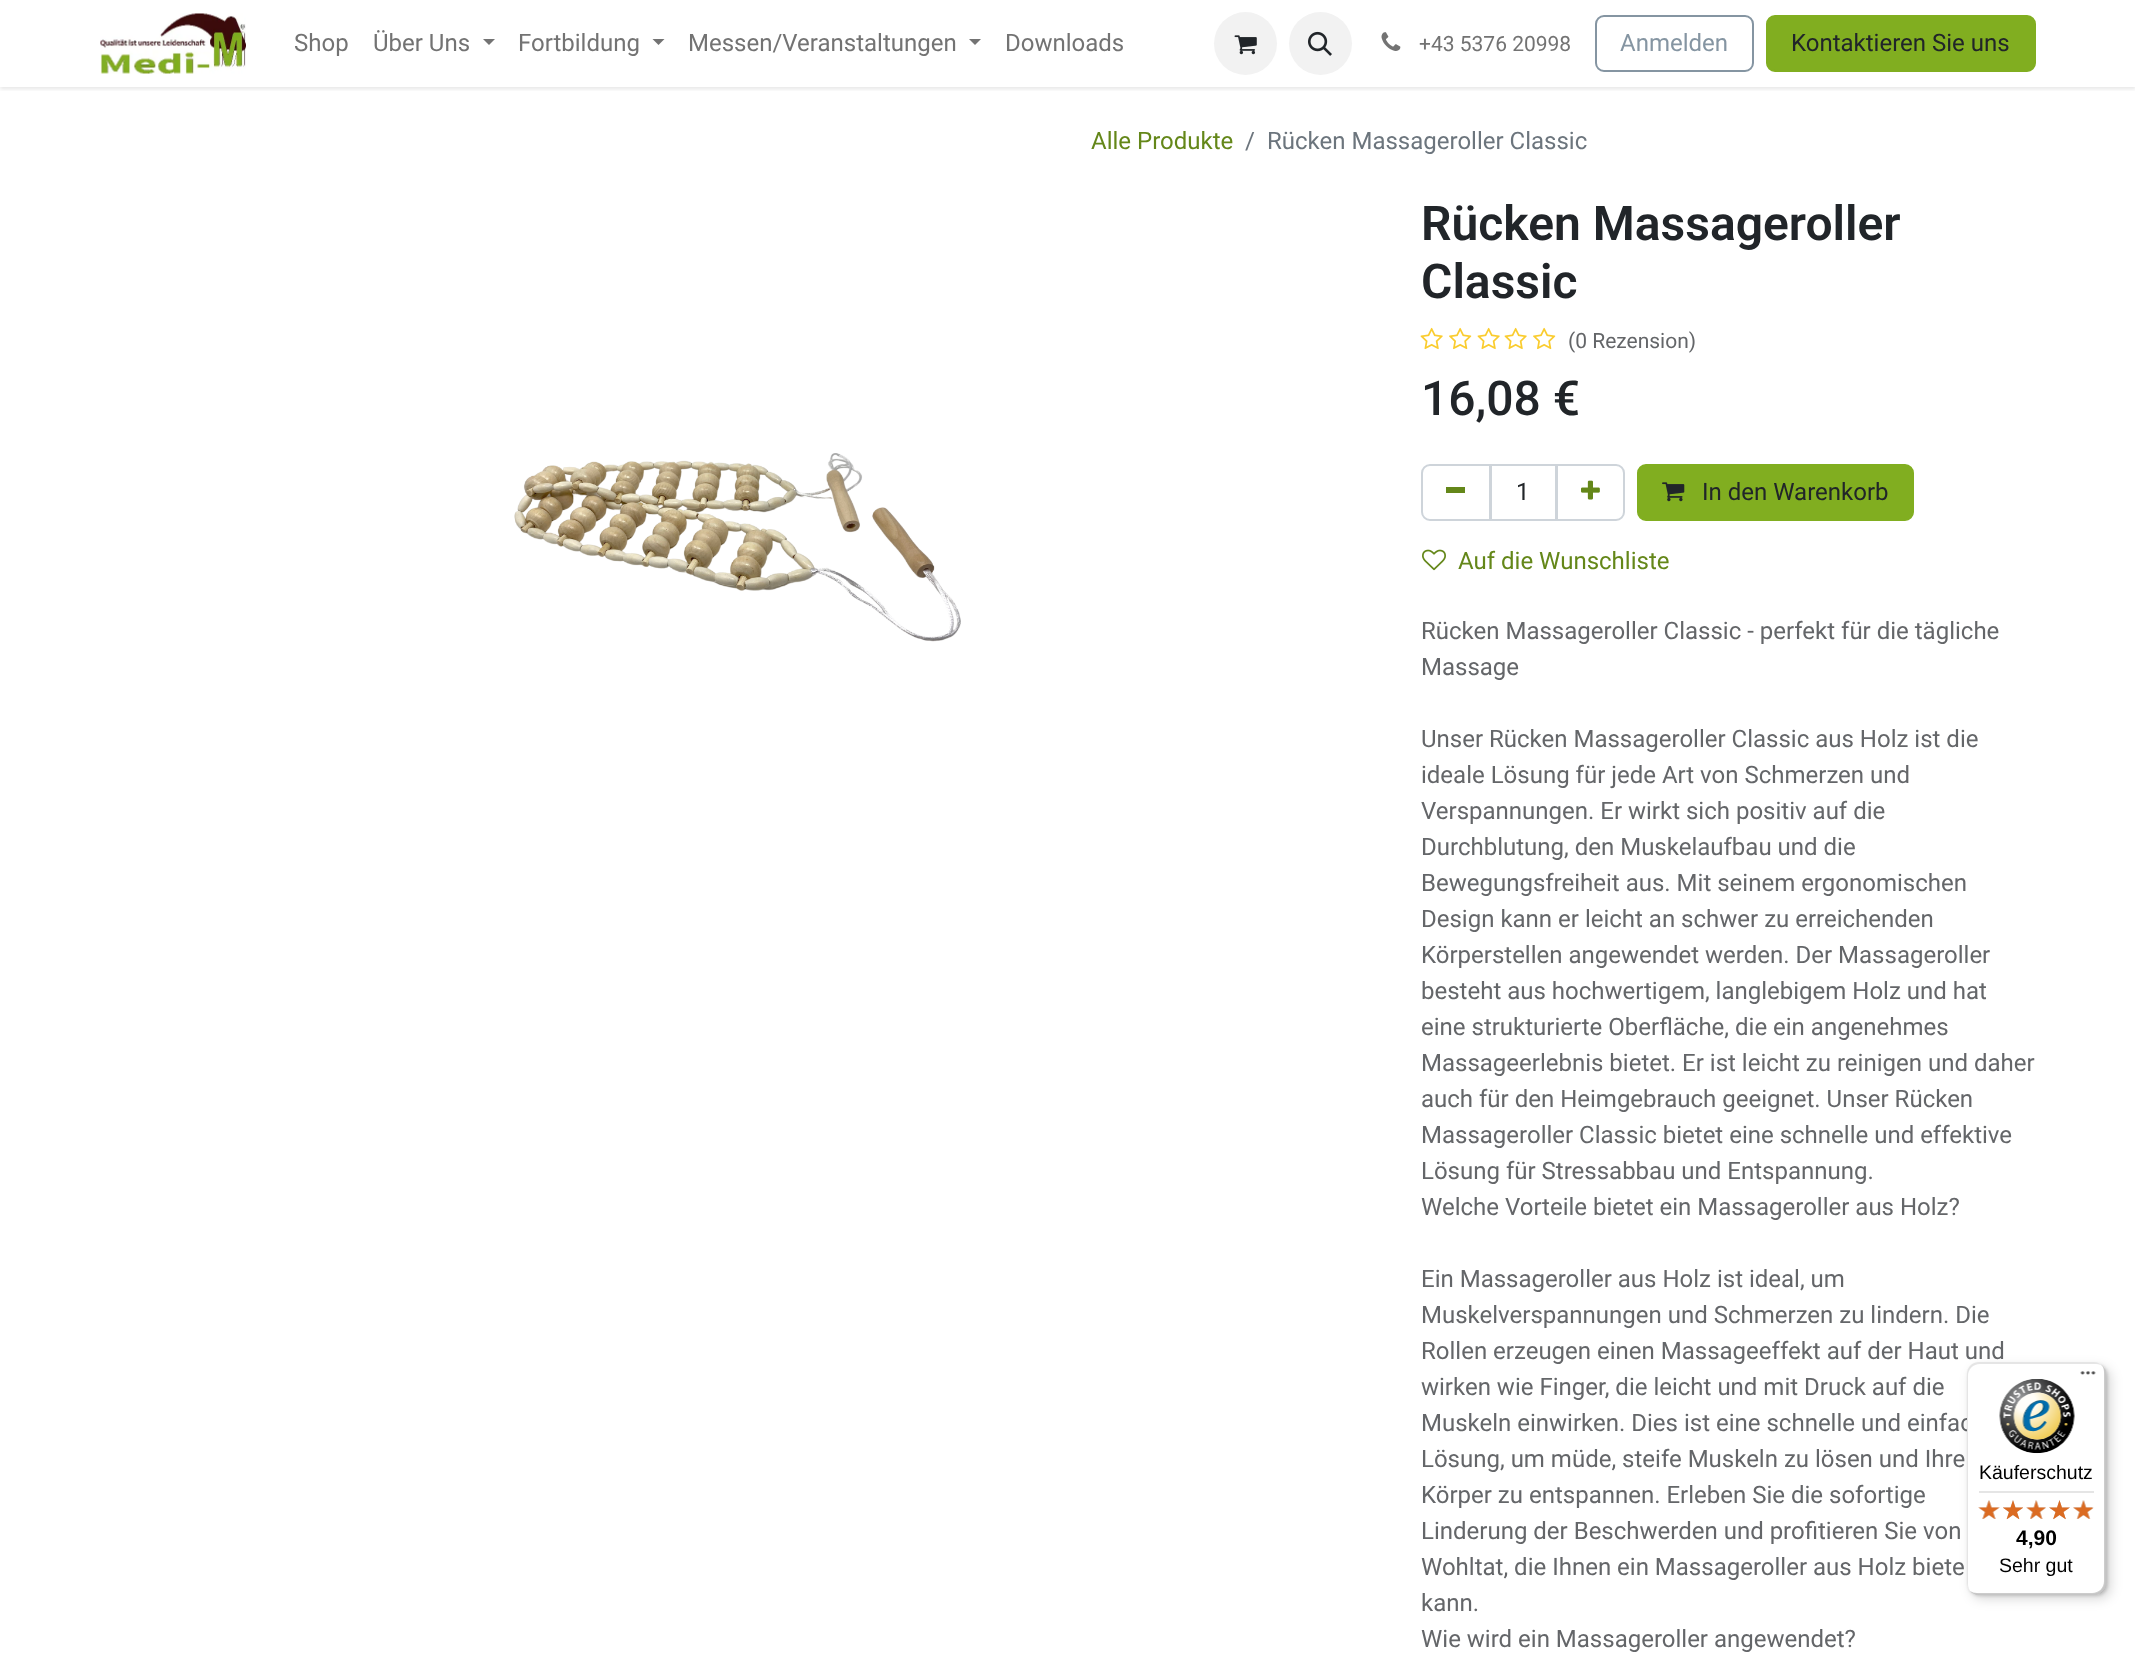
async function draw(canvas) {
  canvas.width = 2135
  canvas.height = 1675
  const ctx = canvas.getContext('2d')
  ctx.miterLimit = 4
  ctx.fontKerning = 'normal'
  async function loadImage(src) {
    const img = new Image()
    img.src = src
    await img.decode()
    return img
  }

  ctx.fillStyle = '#fff'
  ctx.fillRect(0, 0, 2135, 1675)
  ctx.save()
  ctx.beginPath()
  ctx.rect(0, 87, 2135, 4)
  ctx.clip()
  ctx.fillStyle = '#0000001a'
  ctx.filter = 'blur(2px)'
  ctx.beginPath()
  ctx.rect(0, 2, 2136, 87)
  ctx.fill()
  ctx.filter = 'none'
  ctx.restore()
  ctx.drawImage(await loadImage('image0.png'), 100, 13, 146, 61)
  ctx.font = '24px Roboto'
  ctx.fillStyle = '#737373'
  ctx.fillText('Shop', 294, 51)
  ctx.fillText('Über Uns', 373, 51)
  ctx.beginPath()
  ctx.moveTo(483, 39)
  ctx.lineTo(495, 39)
  ctx.lineTo(489, 45)
  ctx.closePath()
  ctx.fill()
  ctx.fillText('Fortbildung', 518, 51)
  ctx.beginPath()
  ctx.moveTo(652.5, 39)
  ctx.lineTo(664.5, 39)
  ctx.lineTo(658.5, 45)
  ctx.closePath()
  ctx.fill()
  ctx.fillText('Messen/Veranstaltungen', 688, 51)
  ctx.beginPath()
  ctx.moveTo(969, 39)
  ctx.lineTo(981, 39)
  ctx.lineTo(975, 45)
  ctx.closePath()
  ctx.fill()
  ctx.fillText('Downloads', 1005, 51)
  ctx.fillStyle = '#f2f2f2'
  ctx.beginPath()
  ctx.arc(1245.5, 43.5, 31.5, 0, 2 * Math.PI)
  ctx.fill()
  ctx.drawImage(await loadImage('image1.png'), 1234, 35, 23, 20)
  ctx.beginPath()
  ctx.arc(1320.5, 43.5, 31.5, 0, 2 * Math.PI)
  ctx.fill()
  ctx.drawImage(await loadImage('image2.png'), 1308, 31, 24, 25)
  ctx.drawImage(await loadImage('image3.png'), 1381, 32, 20, 19)
  ctx.font = '21px Roboto'
  ctx.fillStyle = '#737373'
  ctx.fillText('+43 5376 20998', 1419, 51)
  ctx.beginPath()
  ctx.roundRect(1596, 16, 157, 55, 8)
  ctx.strokeStyle = '#8595a2'
  ctx.lineWidth = 2
  ctx.stroke()
  ctx.font = '24px Roboto'
  ctx.fillStyle = '#8595a2'
  ctx.fillText('Anmelden', 1620, 51)
  ctx.fillStyle = '#81ae20'
  ctx.beginPath()
  ctx.roundRect(1767, 16, 268, 55, 8)
  ctx.fill()
  ctx.strokeStyle = '#81ae20'
  ctx.stroke()
  ctx.fillStyle = '#212529'
  ctx.fillText('Kontaktieren Sie uns', 1791, 51)
  ctx.fillStyle = '#648719'
  ctx.fillText('Alle Produkte', 1091, 149)
  ctx.fillStyle = '#6c757d'
  ctx.fillText('/', 1245, 149)
  ctx.fillText('Rücken Massageroller Classic', 1267, 149)
  ctx.drawImage(await loadImage('image4.png'), 514, 453, 447, 189)
  ctx.font = '600 48px Roboto'
  ctx.fillStyle = '#212529'
  ctx.fillText('Rücken Massageroller', 1421, 240)
  ctx.fillText('Classic', 1421, 298)
  ctx.drawImage(await loadImage('image5.png'), 1420, 327, 23, 23)
  ctx.drawImage(await loadImage('image6.png'), 1449, 327, 23, 23)
  ctx.drawImage(await loadImage('image5.png'), 1477, 327, 23, 23)
  ctx.drawImage(await loadImage('image5.png'), 1504, 327, 23, 23)
  ctx.drawImage(await loadImage('image6.png'), 1533, 327, 23, 23)
  ctx.font = '21px Roboto'
  ctx.fillStyle = '#646669'
  ctx.fillText('(0 Rezension)', 1568, 348)
  ctx.font = '500 48px Roboto'
  ctx.fillStyle = '#212529'
  ctx.fillText('16,08 €', 1421, 415)
  ctx.strokeStyle = '#ced4da'
  ctx.strokeRect(1491, 465, 65, 55)
  ctx.beginPath()
  ctx.roundRect(1422, 465, 68, 55, [8, 0, 0, 8])
  ctx.stroke()
  ctx.fillStyle = '#648719'
  ctx.fillRect(1446, 487, 19, 6)
  ctx.font = '24px Roboto'
  ctx.fillStyle = '#212529'
  ctx.fillText('1', 1516, 500)
  ctx.beginPath()
  ctx.roundRect(1557, 465, 67, 55, [0, 8, 8, 0])
  ctx.stroke()
  ctx.drawImage(await loadImage('image7.png'), 1581, 480, 19, 20)
  ctx.fillStyle = '#81ae20'
  ctx.beginPath()
  ctx.roundRect(1638, 465, 275, 55, 8)
  ctx.fill()
  ctx.strokeStyle = '#81ae20'
  ctx.stroke()
  ctx.drawImage(await loadImage('image8.png'), 1662, 482, 23, 20)
  ctx.fillStyle = '#212529'
  ctx.fillText('In den Warenkorb', 1702, 500)
  ctx.drawImage(await loadImage('image9.png'), 1422, 549, 24, 22)
  ctx.fillStyle = '#648719'
  ctx.fillText('Auf die Wunschliste', 1458, 569)
  ctx.fillStyle = '#646669'
  ctx.fillText('Rücken Massageroller Classic - perfekt für die tägliche', 1421, 639)
  ctx.fillText('Massage', 1421, 675)
  ctx.fillText('Unser Rücken Massageroller Classic aus Holz ist die', 1421, 747)
  ctx.fillText('ideale Lösung für jede Art von Schmerzen und', 1421, 783)
  ctx.fillText('Verspannungen. Er wirkt sich positiv auf die', 1421, 819)
  ctx.fillText('Durchblutung, den Muskelaufbau und die', 1421, 855)
  ctx.fillText('Bewegungsfreiheit aus. Mit seinem ergonomischen', 1421, 891)
  ctx.fillText('Design kann er leicht an schwer zu erreichenden', 1421, 927)
  ctx.fillText('Körperstellen angewendet werden. Der Massageroller', 1421, 963)
  ctx.fillText('besteht aus hochwertigem, langlebigem Holz und hat', 1421, 999)
  ctx.fillText('eine strukturierte Oberfläche, die ein angenehmes', 1421, 1035)
  ctx.fillText('Massageerlebnis bietet. Er ist leicht zu reinigen und daher', 1421, 1071)
  ctx.fillText('auch für den Heimgebrauch geeignet. Unser Rücken', 1421, 1107)
  ctx.fillText('Massageroller Classic bietet eine schnelle und effektive', 1421, 1143)
  ctx.fillText('Lösung für Stressabbau und Entspannung.', 1421, 1179)
  ctx.fillText('Welche Vorteile bietet ein Massageroller aus Holz?', 1421, 1215)
  ctx.fillText('Ein Massageroller aus Holz ist ideal, um', 1421, 1287)
  ctx.fillText('Muskelverspannungen und Schmerzen zu lindern. Die', 1421, 1323)
  ctx.fillText('Rollen erzeugen einen Massageeffekt auf der Haut und', 1421, 1359)
  ctx.fillText('wirken wie Finger, die leicht und mit Druck auf die', 1421, 1395)
  ctx.fillText('Muskeln einwirken. Dies ist eine schnelle und einfac', 1421, 1431)
  ctx.fillText('Lösung, um müde, steife Muskeln zu lösen und Ihre', 1421, 1467)
  ctx.fillText('Körper zu entspannen. Erleben Sie die sofortige', 1421, 1503)
  ctx.fillText('Linderung der Beschwerden und profitieren Sie von', 1421, 1539)
  ctx.fillText('Wohltat, die Ihnen ein Massageroller aus Holz biete', 1421, 1575)
  ctx.fillText('kann.', 1421, 1611)
  ctx.fillText('Wie wird ein Massageroller angewendet?', 1421, 1647)
  ctx.fillStyle = '#00000026'
  ctx.filter = 'blur(6px)'
  ctx.beginPath()
  ctx.roundRect(1971, 1367, 140, 232, 12)
  ctx.fill()
  ctx.filter = 'none'
  ctx.filter = 'blur(1.5px)'
  ctx.beginPath()
  ctx.roundRect(1968, 1364, 140, 232, 12)
  ctx.fill()
  ctx.filter = 'none'
  ctx.fillStyle = '#fff'
  ctx.beginPath()
  ctx.roundRect(1967, 1362, 139, 233, 12)
  ctx.fill()
  ctx.fillStyle = '#e5e5e5'
  ctx.beginPath()
  ctx.moveTo(1980, 1364)
  ctx.lineTo(2096, 1364)
  ctx.bezierCurveTo(2099, 1364, 2101, 1365, 2104, 1367)
  ctx.bezierCurveTo(2101, 1364, 2098, 1362, 2094, 1362)
  ctx.lineTo(1979, 1362)
  ctx.bezierCurveTo(1972, 1362, 1967, 1367, 1967, 1374)
  ctx.lineTo(1967, 1583)
  ctx.bezierCurveTo(1967, 1586, 1968, 1589, 1970, 1591)
  ctx.bezierCurveTo(1969, 1589, 1968, 1587, 1968, 1584)
  ctx.lineTo(1968, 1376)
  ctx.bezierCurveTo(1968, 1369, 1973, 1364, 1980, 1364)
  ctx.closePath()
  ctx.fill()
  ctx.fillStyle = '#00000033'
  ctx.beginPath()
  ctx.moveTo(1970, 1591)
  ctx.bezierCurveTo(1972, 1593, 1975, 1595, 1979, 1595)
  ctx.lineTo(2094, 1595)
  ctx.bezierCurveTo(2101, 1595, 2106, 1590, 2106, 1583)
  ctx.lineTo(2106, 1374)
  ctx.bezierCurveTo(2106, 1370, 2104, 1367, 2101, 1364)
  ctx.bezierCurveTo(2103, 1367, 2104, 1369, 2104, 1372)
  ctx.lineTo(2104, 1581)
  ctx.bezierCurveTo(2104, 1588, 2099, 1593, 2092, 1593)
  ctx.lineTo(1977, 1593)
  ctx.bezierCurveTo(1974, 1593, 1972, 1592, 1970, 1591)
  ctx.closePath()
  ctx.fill()
  ctx.fillStyle = '#32323233'
  ctx.beginPath()
  ctx.moveTo(1970, 1591)
  ctx.bezierCurveTo(1972, 1593, 1975, 1595, 1979, 1595)
  ctx.lineTo(2094, 1595)
  ctx.bezierCurveTo(2101, 1595, 2106, 1590, 2106, 1583)
  ctx.lineTo(2106, 1374)
  ctx.bezierCurveTo(2106, 1371, 2105, 1368, 2103, 1366)
  ctx.bezierCurveTo(2104, 1368, 2105, 1370, 2105, 1373)
  ctx.lineTo(2105, 1582)
  ctx.bezierCurveTo(2105, 1588, 2100, 1594, 2093, 1594)
  ctx.lineTo(1978, 1594)
  ctx.bezierCurveTo(1975, 1594, 1972, 1593, 1970, 1591)
  ctx.closePath()
  ctx.fill()
  ctx.fillStyle = '#ffffff4d'
  ctx.beginPath()
  ctx.moveTo(1970, 1591)
  ctx.bezierCurveTo(1972, 1593, 1975, 1595, 1979, 1595)
  ctx.lineTo(2094, 1595)
  ctx.bezierCurveTo(2101, 1595, 2106, 1590, 2106, 1583)
  ctx.lineTo(2106, 1374)
  ctx.bezierCurveTo(2106, 1370, 2104, 1367, 2102, 1365)
  ctx.bezierCurveTo(2104, 1367, 2105, 1370, 2105, 1373)
  ctx.lineTo(2105, 1582)
  ctx.bezierCurveTo(2105, 1588, 2100, 1594, 2093, 1594)
  ctx.lineTo(1978, 1594)
  ctx.bezierCurveTo(1975, 1594, 1972, 1593, 1970, 1591)
  ctx.closePath()
  ctx.fill()
  ctx.drawImage(await loadImage('image10.png'), 2080, 1371, 16, 4)
  ctx.drawImage(await loadImage('image11.png'), 1999, 1379, 76, 75)
  ctx.font = '19.5px Liberation Sans'
  ctx.fillStyle = '#000'
  ctx.fillText('Käuferschutz', 1979, 1479)
  ctx.fillStyle = '#e5e5e5'
  ctx.fillRect(1979, 1491, 115, 2)
  ctx.drawImage(await loadImage('image12.png'), 1978, 1500, 22, 19)
  ctx.drawImage(await loadImage('image13.png'), 2003, 1500, 20, 19)
  ctx.drawImage(await loadImage('image14.png'), 2026, 1500, 20, 19)
  ctx.drawImage(await loadImage('image15.png'), 2049, 1500, 21, 19)
  ctx.drawImage(await loadImage('image16.png'), 2073, 1500, 21, 19)
  ctx.drawImage(await loadImage('image17.png'), 1978, 1500, 22, 19)
  ctx.drawImage(await loadImage('image18.png'), 2003, 1500, 20, 20)
  ctx.drawImage(await loadImage('image19.png'), 2026, 1500, 20, 19)
  ctx.drawImage(await loadImage('image20.png'), 2049, 1500, 21, 20)
  ctx.drawImage(await loadImage('image21.png'), 2073, 1500, 20, 19)
  ctx.font = 'bold 21px Liberation Sans'
  ctx.fillStyle = '#000'
  ctx.fillText('4,90', 2016, 1545)
  ctx.font = '19.5px Liberation Sans'
  ctx.fillText('Sehr gut', 1999, 1572)
}

draw(document.querySelector('canvas'))
